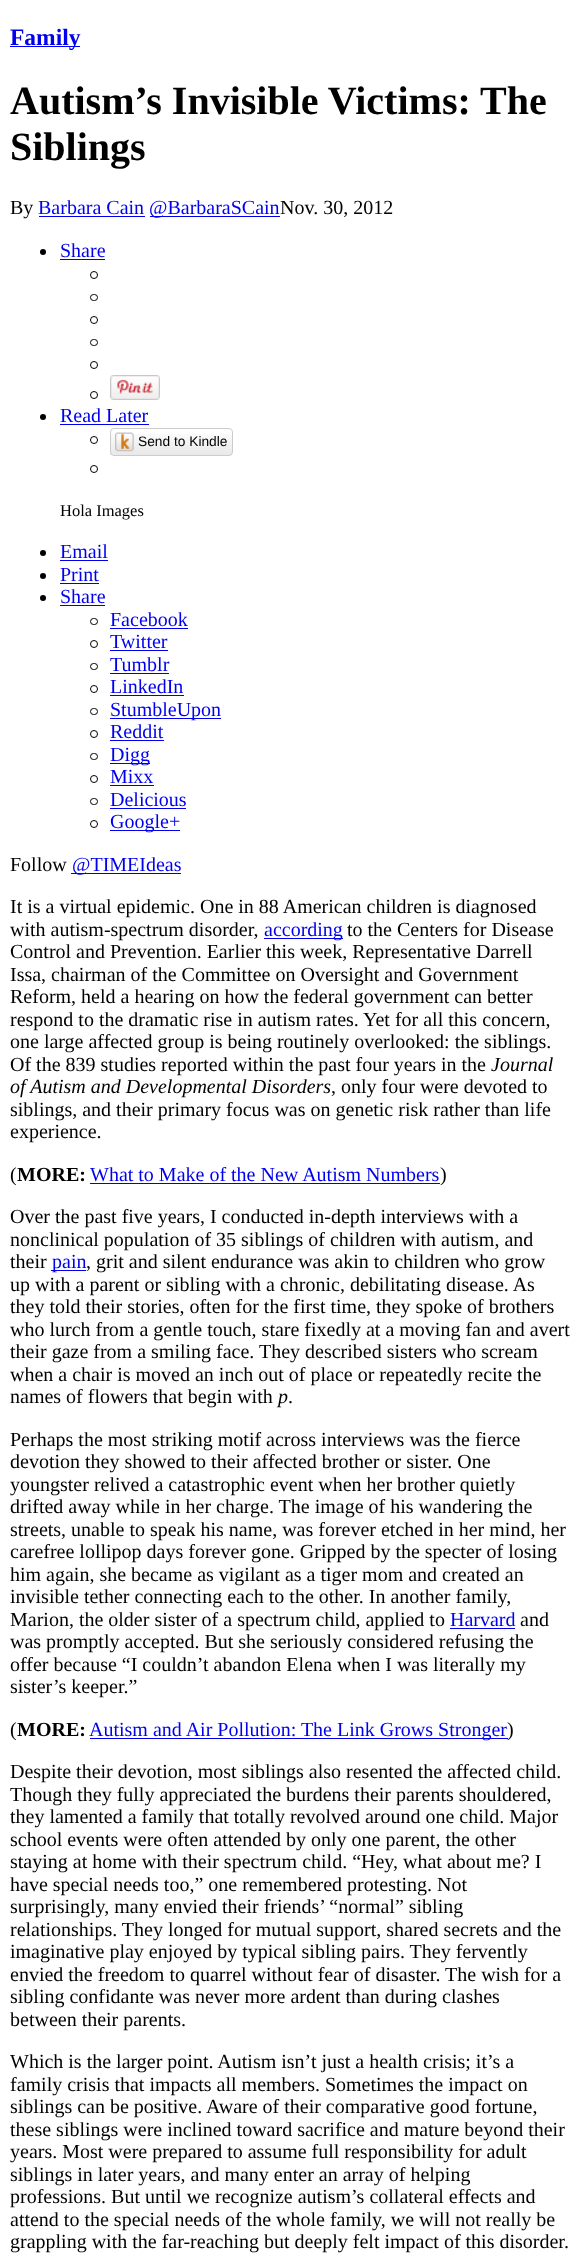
async function draw(canvas) {
  canvas.width = 579
  canvas.height = 2255
  const ctx = canvas.getContext('2d')
  ctx.miterLimit = 4
  ctx.fontKerning = 'normal'
  async function loadImage(src) {
    const img = new Image()
    img.src = src
    await img.decode()
    return img
  }

  ctx.fillStyle = '#fff'
  ctx.fillRect(0, 0, 579, 2255)
  ctx.fillStyle = '#00e'
  ctx.fillRect(10, 46, 70, 1)
  ctx.font = 'bold 23.5px Liberation Serif'
  ctx.fillText('Family', 10, 45)
  ctx.font = 'bold 40px Liberation Serif'
  ctx.fillStyle = '#000'
  ctx.fillText('Autism’s Invisible Victims: The', 10, 114)
  ctx.fillText('Siblings', 10, 160)
  ctx.font = '20px Liberation Serif'
  ctx.fillText('By', 10, 214)
  ctx.fillStyle = '#00e'
  ctx.fillText('Barbara Cain', 38, 214)
  ctx.fillRect(39, 216, 106, 1)
  ctx.fillRect(150, 216, 130, 1)
  ctx.fillText('@BarbaraSCain', 149, 214)
  ctx.fillStyle = '#000'
  ctx.fillText('Nov. 30, 2012', 280, 214)
  ctx.beginPath()
  ctx.arc(43, 252, 3, 0, 2 * Math.PI)
  ctx.fill()
  ctx.fillStyle = '#00e'
  ctx.fillText('Share', 60, 257)
  ctx.fillRect(60, 259, 45, 1)
  ctx.beginPath()
  ctx.arc(94, 275, 3.5, 0, 2 * Math.PI)
  ctx.strokeStyle = '#000'
  ctx.stroke()
  ctx.beginPath()
  ctx.roundRect(90.5, 294.5, 7, 6, 3)
  ctx.stroke()
  ctx.beginPath()
  ctx.arc(94, 320, 3.5, 0, 2 * Math.PI)
  ctx.stroke()
  ctx.beginPath()
  ctx.roundRect(90.5, 339.5, 7, 6, 3)
  ctx.stroke()
  ctx.beginPath()
  ctx.arc(94, 365, 3.5, 0, 2 * Math.PI)
  ctx.stroke()
  ctx.beginPath()
  ctx.arc(94, 395, 3.5, 0, 2 * Math.PI)
  ctx.stroke()
  ctx.drawImage(await loadImage('image0.png'), 110, 375, 50, 25)
  ctx.fillStyle = '#000'
  ctx.beginPath()
  ctx.arc(43, 417, 3, 0, 2 * Math.PI)
  ctx.fill()
  ctx.fillStyle = '#00e'
  ctx.fillText('Read Later', 60, 422)
  ctx.fillRect(60, 424, 89, 1)
  ctx.beginPath()
  ctx.arc(94, 440, 3.5, 0, 2 * Math.PI)
  ctx.stroke()
  ctx.drawImage(await loadImage('image1.png'), 110, 434, 123, 21)
  ctx.beginPath()
  ctx.roundRect(110.5, 428.5, 122, 27, 3.5)
  ctx.strokeStyle = '#ccc'
  ctx.stroke()
  ctx.drawImage(await loadImage('image2.png'), 115, 432, 19, 20)
  ctx.font = '13.75px Liberation Sans'
  ctx.fillStyle = '#000'
  ctx.fillText('Send to Kindle', 138, 446)
  ctx.beginPath()
  ctx.arc(94, 469, 3.5, 0, 2 * Math.PI)
  ctx.strokeStyle = '#000'
  ctx.stroke()
  ctx.font = '16.5px Liberation Serif'
  ctx.fillText('Hola Images', 60, 516)
  ctx.beginPath()
  ctx.arc(43, 553, 3, 0, 2 * Math.PI)
  ctx.fill()
  ctx.font = '20px Liberation Serif'
  ctx.fillStyle = '#00e'
  ctx.fillText('Email', 60, 558)
  ctx.fillRect(60, 560, 48, 1)
  ctx.fillStyle = '#000'
  ctx.beginPath()
  ctx.arc(43, 576, 3, 0, 2 * Math.PI)
  ctx.fill()
  ctx.fillStyle = '#00e'
  ctx.fillText('Print', 60, 581)
  ctx.fillRect(60, 583, 39, 1)
  ctx.fillStyle = '#000'
  ctx.beginPath()
  ctx.arc(43, 598, 3, 0, 2 * Math.PI)
  ctx.fill()
  ctx.fillStyle = '#00e'
  ctx.fillText('Share', 60, 603)
  ctx.fillRect(60, 605, 45, 1)
  ctx.beginPath()
  ctx.roundRect(90.5, 618.5, 7, 6, 3)
  ctx.stroke()
  ctx.fillText('Facebook', 110, 626)
  ctx.fillRect(110, 628, 78, 1)
  ctx.beginPath()
  ctx.arc(94, 644, 3.5, 0, 2 * Math.PI)
  ctx.stroke()
  ctx.fillText('Twitter', 110, 648)
  ctx.fillRect(110, 650, 58, 1)
  ctx.beginPath()
  ctx.roundRect(90.5, 663.5, 7, 6, 3)
  ctx.stroke()
  ctx.fillText('Tumblr', 110, 671)
  ctx.fillRect(110, 673, 59, 1)
  ctx.beginPath()
  ctx.arc(94, 689, 3.5, 0, 2 * Math.PI)
  ctx.stroke()
  ctx.fillText('LinkedIn', 110, 693)
  ctx.fillRect(110, 695, 74, 1)
  ctx.beginPath()
  ctx.roundRect(90.5, 708.5, 7, 6, 3)
  ctx.stroke()
  ctx.fillRect(110, 718, 111, 1)
  ctx.fillText('StumbleUpon', 110, 716)
  ctx.beginPath()
  ctx.arc(94, 734, 3.5, 0, 2 * Math.PI)
  ctx.stroke()
  ctx.fillText('Reddit', 110, 738)
  ctx.fillRect(110, 740, 54, 1)
  ctx.beginPath()
  ctx.roundRect(90.5, 753.5, 7, 6, 3)
  ctx.stroke()
  ctx.fillRect(110, 763, 40, 1)
  ctx.fillText('Digg', 110, 761)
  ctx.beginPath()
  ctx.arc(94, 779, 3.5, 0, 2 * Math.PI)
  ctx.stroke()
  ctx.fillText('Mixx', 110, 783)
  ctx.fillRect(110, 785, 44, 1)
  ctx.beginPath()
  ctx.roundRect(90.5, 798.5, 7, 6, 3)
  ctx.stroke()
  ctx.fillText('Delicious', 110, 806)
  ctx.fillRect(110, 808, 76, 1)
  ctx.beginPath()
  ctx.arc(94, 824, 3.5, 0, 2 * Math.PI)
  ctx.stroke()
  ctx.fillRect(110, 830, 70, 1)
  ctx.fillText('Google+', 110, 828)
  ctx.fillStyle = '#000'
  ctx.fillText('Follow', 10, 871)
  ctx.fillStyle = '#00e'
  ctx.fillRect(71, 873, 110, 1)
  ctx.fillText('@TIMEIdeas', 72, 871)
  ctx.fillStyle = '#000'
  ctx.fillText('It is a virtual epidemic. One in 88 American children is diagnosed', 10, 913)
  ctx.fillText('with autism-spectrum disorder,', 10, 936)
  ctx.fillStyle = '#00e'
  ctx.fillRect(264, 938, 79, 1)
  ctx.fillText('according', 264, 936)
  ctx.fillStyle = '#000'
  ctx.fillText('to the Centers for Disease', 347, 936)
  ctx.fillText('Control and Prevention. Earlier this week, Representative Darrell', 10, 958)
  ctx.fillText('Issa, chairman of the Committee on Oversight and Government', 10, 981)
  ctx.fillText('Reform, held a hearing on how the federal government can better', 10, 1003)
  ctx.fillText('respond to the dramatic rise in autism rates. Yet for all this concern,', 10, 1026)
  ctx.fillText('one large affected group is being routinely overlooked: the siblings.', 10, 1048)
  ctx.fillText('Of the 839 studies reported within the past four years in the', 10, 1071)
  ctx.font = 'italic 20px Liberation Serif'
  ctx.fillText('Journal', 491, 1071)
  ctx.fillText('of Autism and Developmental Disorders', 10, 1093)
  ctx.font = '20px Liberation Serif'
  ctx.fillText(', only four were devoted to', 331, 1093)
  ctx.fillText('siblings, and their primary focus was on genetic risk rather than life', 10, 1116)
  ctx.fillText('experience.', 10, 1138)
  ctx.fillText('(', 10, 1181)
  ctx.font = 'bold 20px Liberation Serif'
  ctx.fillText('MORE:', 17, 1181)
  ctx.font = '20px Liberation Serif'
  ctx.fillStyle = '#00e'
  ctx.fillText('What to Make of the New Autism Numbers', 90, 1181)
  ctx.fillRect(90, 1183, 350, 1)
  ctx.fillStyle = '#000'
  ctx.fillText(')', 440, 1181)
  ctx.fillText('Over the past five years, I conducted in-depth interviews with a', 10, 1223)
  ctx.fillText('nonclinical population of 35 siblings of children with autism, and', 10, 1246)
  ctx.fillText('their', 10, 1268)
  ctx.fillStyle = '#00e'
  ctx.fillRect(51, 1270, 35, 1)
  ctx.fillText('pain', 52, 1268)
  ctx.fillStyle = '#000'
  ctx.fillText(', grit and silent endurance was akin to children who grow', 86, 1268)
  ctx.fillText('up with a parent or sibling with a chronic, debilitating disease. As', 10, 1291)
  ctx.fillText('they told their stories, often for the first time, they spoke of brothers', 10, 1313)
  ctx.fillText('who lurch from a gentle touch, stare fixedly at a moving fan and avert', 10, 1336)
  ctx.fillText('their gaze from a smiling face. They described sisters who scream', 10, 1358)
  ctx.fillText('when a chair is moved an inch out of place or repeatedly recite the', 10, 1381)
  ctx.fillText('names of flowers that begin with', 10, 1403)
  ctx.font = 'italic 20px Liberation Serif'
  ctx.fillText('p', 278, 1403)
  ctx.font = '20px Liberation Serif'
  ctx.fillText('.', 288, 1403)
  ctx.fillText('Perhaps the most striking motif across interviews was the fierce', 10, 1446)
  ctx.fillText('devotion they showed to their affected brother or sister. One', 10, 1468)
  ctx.fillText('youngster relived a catastrophic event when her brother quietly', 10, 1491)
  ctx.fillText('drifted away while in her charge. The image of his wandering the', 10, 1513)
  ctx.fillText('streets, unable to speak his name, was forever etched in her mind, her', 10, 1536)
  ctx.fillText('carefree lollipop days forever gone. Gripped by the specter of losing', 10, 1558)
  ctx.fillText('him again, she became as vigilant as a tiger mom and created an', 10, 1581)
  ctx.fillText('invisible tether connecting each to the other. In another family,', 10, 1603)
  ctx.fillText('Marion, the older sister of a spectrum child, applied to', 10, 1626)
  ctx.fillStyle = '#00e'
  ctx.fillText('Harvard', 450, 1626)
  ctx.fillRect(450, 1628, 65, 1)
  ctx.fillStyle = '#000'
  ctx.fillText('and', 520, 1626)
  ctx.fillText('was promptly accepted. But she seriously considered refusing the', 10, 1648)
  ctx.fillText('offer because “I couldn’t abandon Elena when I was literally my', 10, 1671)
  ctx.fillText('sister’s keeper.”', 10, 1693)
  ctx.fillText('(', 10, 1736)
  ctx.font = 'bold 20px Liberation Serif'
  ctx.fillText('MORE:', 17, 1736)
  ctx.fillStyle = '#00e'
  ctx.fillRect(90, 1738, 418, 1)
  ctx.font = '20px Liberation Serif'
  ctx.fillText('Autism and Air Pollution: The Link Grows Stronger', 89, 1736)
  ctx.fillStyle = '#000'
  ctx.fillText(')', 507, 1736)
  ctx.fillText('Despite their devotion, most siblings also resented the affected child.', 10, 1778)
  ctx.fillText('Though they fully appreciated the burdens their parents shouldered,', 10, 1801)
  ctx.fillText('they lamented a family that totally revolved around one child. Major', 10, 1823)
  ctx.fillText('school events were often attended by only one parent, the other', 10, 1846)
  ctx.fillText('staying at home with their spectrum child. “Hey, what about me? I', 10, 1868)
  ctx.fillText('have special needs too,” one remembered protesting. Not', 10, 1891)
  ctx.fillText('surprisingly, many envied their friends’ “normal” sibling', 10, 1913)
  ctx.fillText('relationships. They longed for mutual support, shared secrets and the', 10, 1936)
  ctx.fillText('imaginative play enjoyed by typical sibling pairs. They fervently', 10, 1958)
  ctx.fillText('envied the freedom to quarrel without fear of disaster. The wish for a', 10, 1981)
  ctx.fillText('sibling confidante was never more ardent than during clashes', 10, 2003)
  ctx.fillText('between their parents.', 10, 2026)
  ctx.fillText('Which is the larger point. Autism isn’t just a health crisis; it’s a', 10, 2068)
  ctx.fillText('family crisis that impacts all members. Sometimes the impact on', 10, 2091)
  ctx.fillText('siblings can be positive. Aware of their comparative good fortune,', 10, 2113)
  ctx.fillText('these siblings were inclined toward sacrifice and mature beyond their', 10, 2136)
  ctx.fillText('years. Most were prepared to assume full responsibility for adult', 10, 2158)
  ctx.fillText('siblings in later years, and many enter an array of helping', 10, 2181)
  ctx.fillText('professions. But until we recognize autism’s collateral effects and', 10, 2203)
  ctx.fillText('attend to the special needs of the whole family, we will not really be', 10, 2226)
  ctx.fillText('grappling with the far-reaching but deeply felt impact of this disorder.', 10, 2248)
}

draw(document.querySelector('canvas'))
